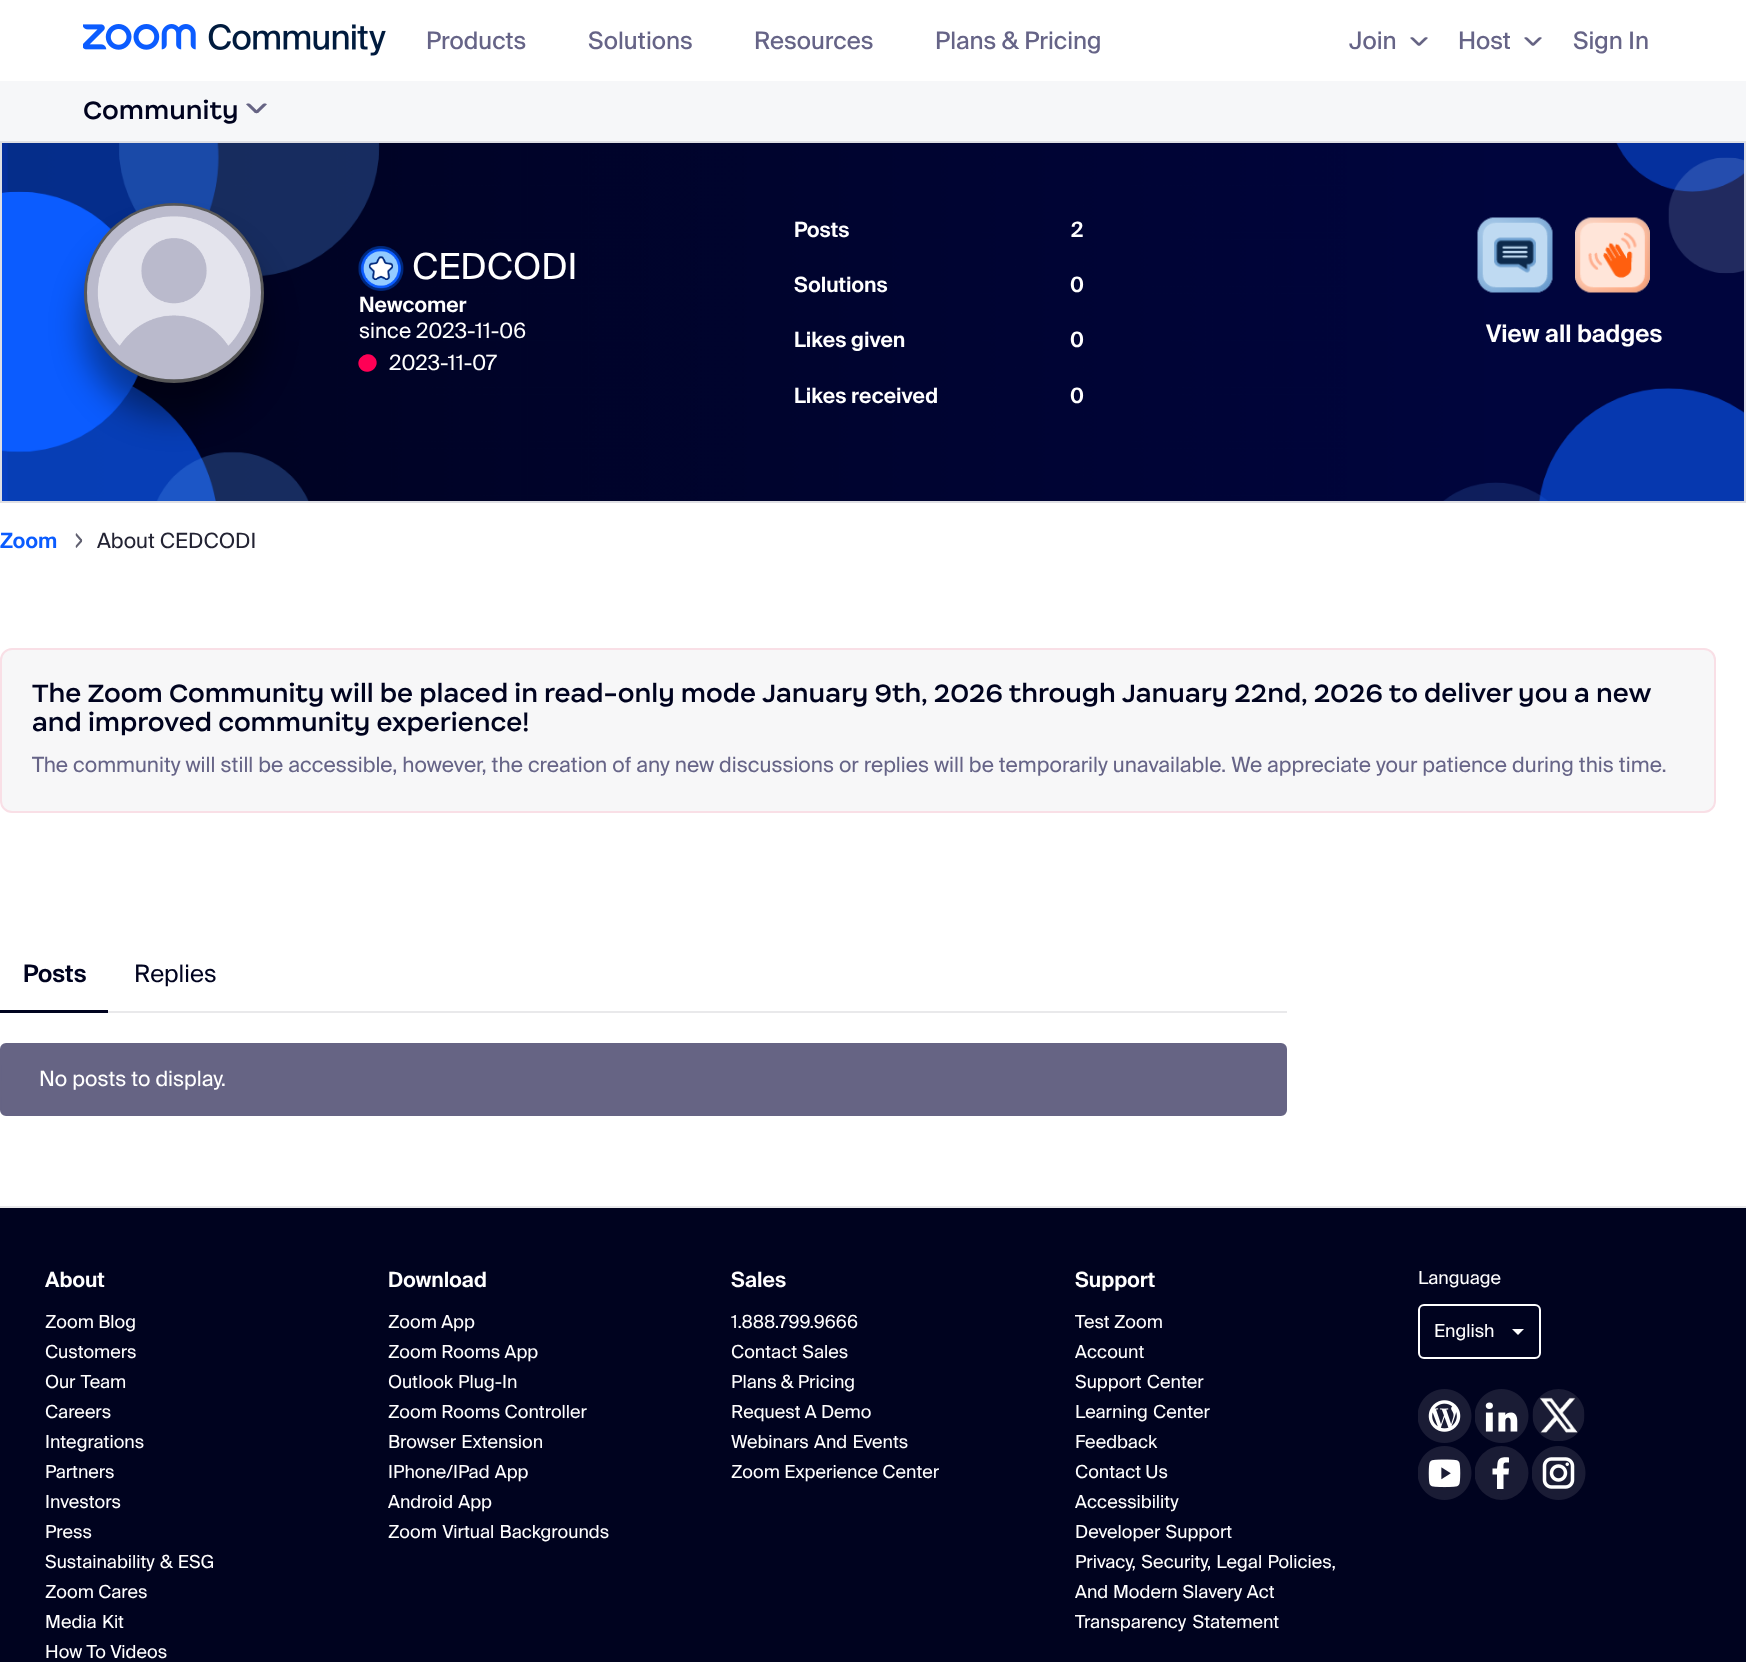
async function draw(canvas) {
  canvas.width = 1746
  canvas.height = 1662
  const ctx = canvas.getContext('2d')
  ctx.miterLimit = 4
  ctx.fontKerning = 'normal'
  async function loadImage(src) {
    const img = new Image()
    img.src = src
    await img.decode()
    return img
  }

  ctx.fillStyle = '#fff'
  ctx.fillRect(0, 0, 1746, 1662)
  ctx.drawImage(await loadImage('image0.png'), 83, 24, 303, 32)
  ctx.font = '24px "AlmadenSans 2"'
  ctx.fillStyle = '#666487'
  ctx.fillText('Products', 426, 49)
  ctx.fillText('Solutions', 588, 49)
  ctx.fillText('Resources', 754, 49)
  ctx.fillText('Plans & Pricing', 935, 49)
  ctx.fillText('Join', 1349, 49)
  ctx.drawImage(await loadImage('image1.png'), 1410, 37, 18, 9)
  ctx.fillText('Host', 1458, 49)
  ctx.drawImage(await loadImage('image1.png'), 1524, 37, 18, 9)
  ctx.fillText('Sign In', 1573, 49)
  ctx.fillStyle = '#f6f7f9'
  ctx.fillRect(0, 81, 1746, 60)
  ctx.font = '600 24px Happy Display'
  ctx.fillStyle = '#00031f'
  ctx.fillText('Community', 83, 119)
  ctx.drawImage(await loadImage('image2.png'), 246, 103, 21, 11)
  ctx.drawImage(await loadImage('image3.png'), 2, 143, 1742, 358)
  ctx.strokeStyle = '#dfdfe4'
  ctx.lineWidth = 2
  ctx.strokeRect(1, 142, 1744, 360)
  ctx.fillStyle = '#00000066'
  ctx.filter = 'blur(16.5px)'
  ctx.beginPath()
  ctx.roundRect(84, 236, 180, 180, 90)
  ctx.fill()
  ctx.filter = 'none'
  ctx.fillStyle = '#5d5d5d'
  ctx.beginPath()
  ctx.arc(174, 293, 90, 0, 2 * Math.PI)
  ctx.fill()
  ctx.beginPath()
  ctx.arc(174, 293, 88.5, 0, 2 * Math.PI)
  ctx.strokeStyle = '#2323331a'
  ctx.lineWidth = 3
  ctx.stroke()
  ctx.drawImage(await loadImage('image4.png'), 87, 205, 174, 175)
  ctx.drawImage(await loadImage('image5.png'), 358, 246, 46, 45)
  ctx.font = '36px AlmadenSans'
  ctx.fillStyle = '#fff'
  ctx.fillText('CEDCODI', 412, 279)
  ctx.font = '600 21px AlmadenSans'
  ctx.fillText('Newcomer', 359, 312)
  ctx.font = '21px AlmadenSans'
  ctx.fillText('since 2023-11-06', 359, 338)
  ctx.fillStyle = '#f05'
  ctx.beginPath()
  ctx.moveTo(375.5, 358.5)
  ctx.bezierCurveTo(381, 368.5, 365.5, 377.5, 359.5, 367.5)
  ctx.bezierCurveTo(354, 357.5, 369.5, 348.5, 375.5, 358.5)
  ctx.closePath()
  ctx.fill()
  ctx.fillStyle = '#fff'
  ctx.fillText('2023-11-07', 389, 370)
  ctx.font = '600 21px AlmadenSans'
  ctx.fillText('Posts', 794, 237)
  ctx.fillText('2', 1071, 237)
  ctx.fillText('Solutions', 794, 292)
  ctx.fillText('0', 1070, 292)
  ctx.fillText('Likes given', 794, 347)
  ctx.fillText('0', 1070, 347)
  ctx.fillText('Likes received', 794, 403)
  ctx.fillText('0', 1070, 403)
  ctx.drawImage(await loadImage('image6.png'), 1477, 217, 76, 76)
  ctx.drawImage(await loadImage('image7.png'), 1575, 217, 75, 76)
  ctx.font = '600 24px AlmadenSans'
  ctx.fillText('View all badges', 1486, 342)
  ctx.font = '600 21px AlmadenSans'
  ctx.fillStyle = '#0b5cff'
  ctx.fillText('Zoom', 0, 548)
  ctx.drawImage(await loadImage('image8.png'), 75, 533, 8, 15)
  ctx.font = '21px AlmadenSans'
  ctx.fillStyle = '#232333'
  ctx.fillText('About CEDCODI', 97, 548)
  ctx.fillStyle = '#f7f7f8'
  ctx.beginPath()
  ctx.roundRect(1, 649, 1714, 163, 11)
  ctx.fill()
  ctx.strokeStyle = '#f9dfe6'
  ctx.lineWidth = 2
  ctx.stroke()
  ctx.font = '600 24px Happy Display'
  ctx.fillStyle = '#00031f'
  ctx.fillText('The Zoom Community will be placed in read-only mode January 9th, 2026 through January 22nd, 2026 to deliver you a new', 32, 702)
  ctx.fillText('and improved community experience!', 32, 731)
  ctx.font = '21px AlmadenSans'
  ctx.fillStyle = '#666487'
  ctx.fillText('The community will still be accessible, however, the creation of any new discussions or replies will be temporarily unavailable. We appreciate your patience during this time.', 32, 772)
  ctx.fillStyle = '#e9e9eb'
  ctx.fillRect(108, 1011, 1179, 2)
  ctx.fillStyle = '#00031f'
  ctx.fillRect(0, 1010, 108, 3)
  ctx.font = '600 24px AlmadenSans'
  ctx.fillText('Posts', 23, 982)
  ctx.font = '24px AlmadenSans'
  ctx.fillText('Replies', 134, 982)
  ctx.fillStyle = '#666484'
  ctx.beginPath()
  ctx.roundRect(1, 1044, 1285, 71, 5)
  ctx.fill()
  ctx.strokeStyle = '#666484'
  ctx.stroke()
  ctx.font = '21px AlmadenSans'
  ctx.fillStyle = '#fff'
  ctx.fillText('No posts to display.', 39, 1086)
  ctx.fillStyle = '#e9e9eb'
  ctx.fillRect(0, 1206, 1746, 2)
  ctx.fillStyle = '#00031f'
  ctx.fillRect(0, 1208, 1746, 454)
  ctx.font = '600 21px AlmadenSans'
  ctx.fillStyle = '#fff'
  ctx.fillText('About', 45, 1287)
  ctx.font = '18px AlmadenSans'
  ctx.fillText('Zoom Blog', 45, 1328)
  ctx.fillText('Customers', 45, 1358)
  ctx.wordSpacing = '1px'
  ctx.fillText('Our Team', 45, 1388)
  ctx.wordSpacing = '0px'
  ctx.fillText('Careers', 45, 1418)
  ctx.fillText('Integrations', 45, 1448)
  ctx.fillText('Partners', 45, 1478)
  ctx.fillText('Investors', 45, 1508)
  ctx.fillText('Press', 45, 1538)
  ctx.wordSpacing = '1px'
  ctx.fillText('Sustainability & ESG', 45, 1568)
  ctx.wordSpacing = '0px'
  ctx.fillText('Zoom Cares', 45, 1598)
  ctx.wordSpacing = '1px'
  ctx.fillText('Media Kit', 45, 1628)
  ctx.wordSpacing = '0px'
  ctx.fillText('How To Videos', 45, 1658)
  ctx.font = '600 21px AlmadenSans'
  ctx.fillText('Download', 388, 1287)
  ctx.font = '18px AlmadenSans'
  ctx.fillText('Zoom App', 388, 1328)
  ctx.fillText('Zoom Rooms App', 388, 1358)
  ctx.wordSpacing = '1px'
  ctx.fillText('Outlook Plug-In', 388, 1388)
  ctx.wordSpacing = '0px'
  ctx.fillText('Zoom Rooms Controller', 388, 1418)
  ctx.wordSpacing = '1px'
  ctx.fillText('Browser Extension', 388, 1448)
  ctx.fillText('IPhone/IPad App', 388, 1478)
  ctx.fillText('Android App', 388, 1508)
  ctx.fillText('Zoom Virtual Backgrounds', 388, 1538)
  ctx.wordSpacing = '0px'
  ctx.font = '600 21px AlmadenSans'
  ctx.fillText('Sales', 731, 1287)
  ctx.font = '18px AlmadenSans'
  ctx.fillText('1.888.799.9666', 731, 1328)
  ctx.wordSpacing = '1px'
  ctx.fillText('Contact Sales', 731, 1358)
  ctx.wordSpacing = '0px'
  ctx.fillText('Plans & Pricing', 731, 1388)
  ctx.fillText('Request A Demo', 731, 1418)
  ctx.wordSpacing = '1px'
  ctx.fillText('Webinars And Events', 731, 1448)
  ctx.wordSpacing = '0px'
  ctx.fillText('Zoom Experience Center', 731, 1478)
  ctx.font = '600 21px AlmadenSans'
  ctx.fillText('Support', 1075, 1287)
  ctx.font = '18px AlmadenSans'
  ctx.fillText('Test Zoom', 1075, 1328)
  ctx.fillText('Account', 1075, 1358)
  ctx.wordSpacing = '1px'
  ctx.fillText('Support Center', 1075, 1388)
  ctx.fillText('Learning Center', 1075, 1418)
  ctx.wordSpacing = '0px'
  ctx.fillText('Feedback', 1075, 1448)
  ctx.fillText('Contact Us', 1075, 1478)
  ctx.fillText('Accessibility', 1075, 1508)
  ctx.wordSpacing = '1px'
  ctx.fillText('Developer Support', 1075, 1538)
  ctx.fillText('Privacy, Security, Legal Policies,', 1075, 1568)
  ctx.wordSpacing = '0.5px'
  ctx.fillText('And Modern Slavery Act', 1075, 1598)
  ctx.wordSpacing = '2px'
  ctx.fillText('Transparency Statement', 1075, 1628)
  ctx.wordSpacing = '0px'
  ctx.fillText('Language', 1418, 1284)
  ctx.beginPath()
  ctx.roundRect(1419, 1305, 121, 53, 5)
  ctx.strokeStyle = '#fff'
  ctx.stroke()
  ctx.fillText('English', 1434, 1337)
  ctx.beginPath()
  ctx.moveTo(1512, 1329)
  ctx.lineTo(1524, 1329)
  ctx.lineTo(1518, 1335)
  ctx.closePath()
  ctx.fill()
  ctx.drawImage(await loadImage('image9.png'), 1418, 1389, 54, 54)
  ctx.drawImage(await loadImage('image10.png'), 1475, 1389, 54, 54)
  ctx.drawImage(await loadImage('image11.png'), 1532, 1389, 53, 52)
  ctx.drawImage(await loadImage('image12.png'), 1418, 1446, 54, 54)
  ctx.save()
  ctx.beginPath()
  ctx.rect(1475, 1446, 54, 54)
  ctx.clip()
  ctx.fillStyle = '#1a1c35'
  ctx.beginPath()
  ctx.arc(1501.5, 1473, 27, 0, 2 * Math.PI)
  ctx.fill()
  ctx.restore()
  ctx.beginPath()
  ctx.moveTo(1509, 1468.5)
  ctx.lineTo(1503.5, 1468.5)
  ctx.bezierCurveTo(1503.5, 1462.5, 1503, 1462.5, 1509, 1462.5)
  ctx.lineTo(1509, 1457.5)
  ctx.bezierCurveTo(1504, 1457, 1498.5, 1457, 1497.5, 1463)
  ctx.lineTo(1497, 1468.5)
  ctx.lineTo(1492.5, 1468.5)
  ctx.lineTo(1492.5, 1474.5)
  ctx.lineTo(1497, 1474.5)
  ctx.lineTo(1497, 1489)
  ctx.lineTo(1503.5, 1489)
  ctx.lineTo(1503.5, 1474.5)
  ctx.lineTo(1508.5, 1474.5)
  ctx.closePath()
  ctx.fill()
  ctx.drawImage(await loadImage('image13.png'), 1532, 1446, 54, 54)
}

draw(document.querySelector('canvas'))
